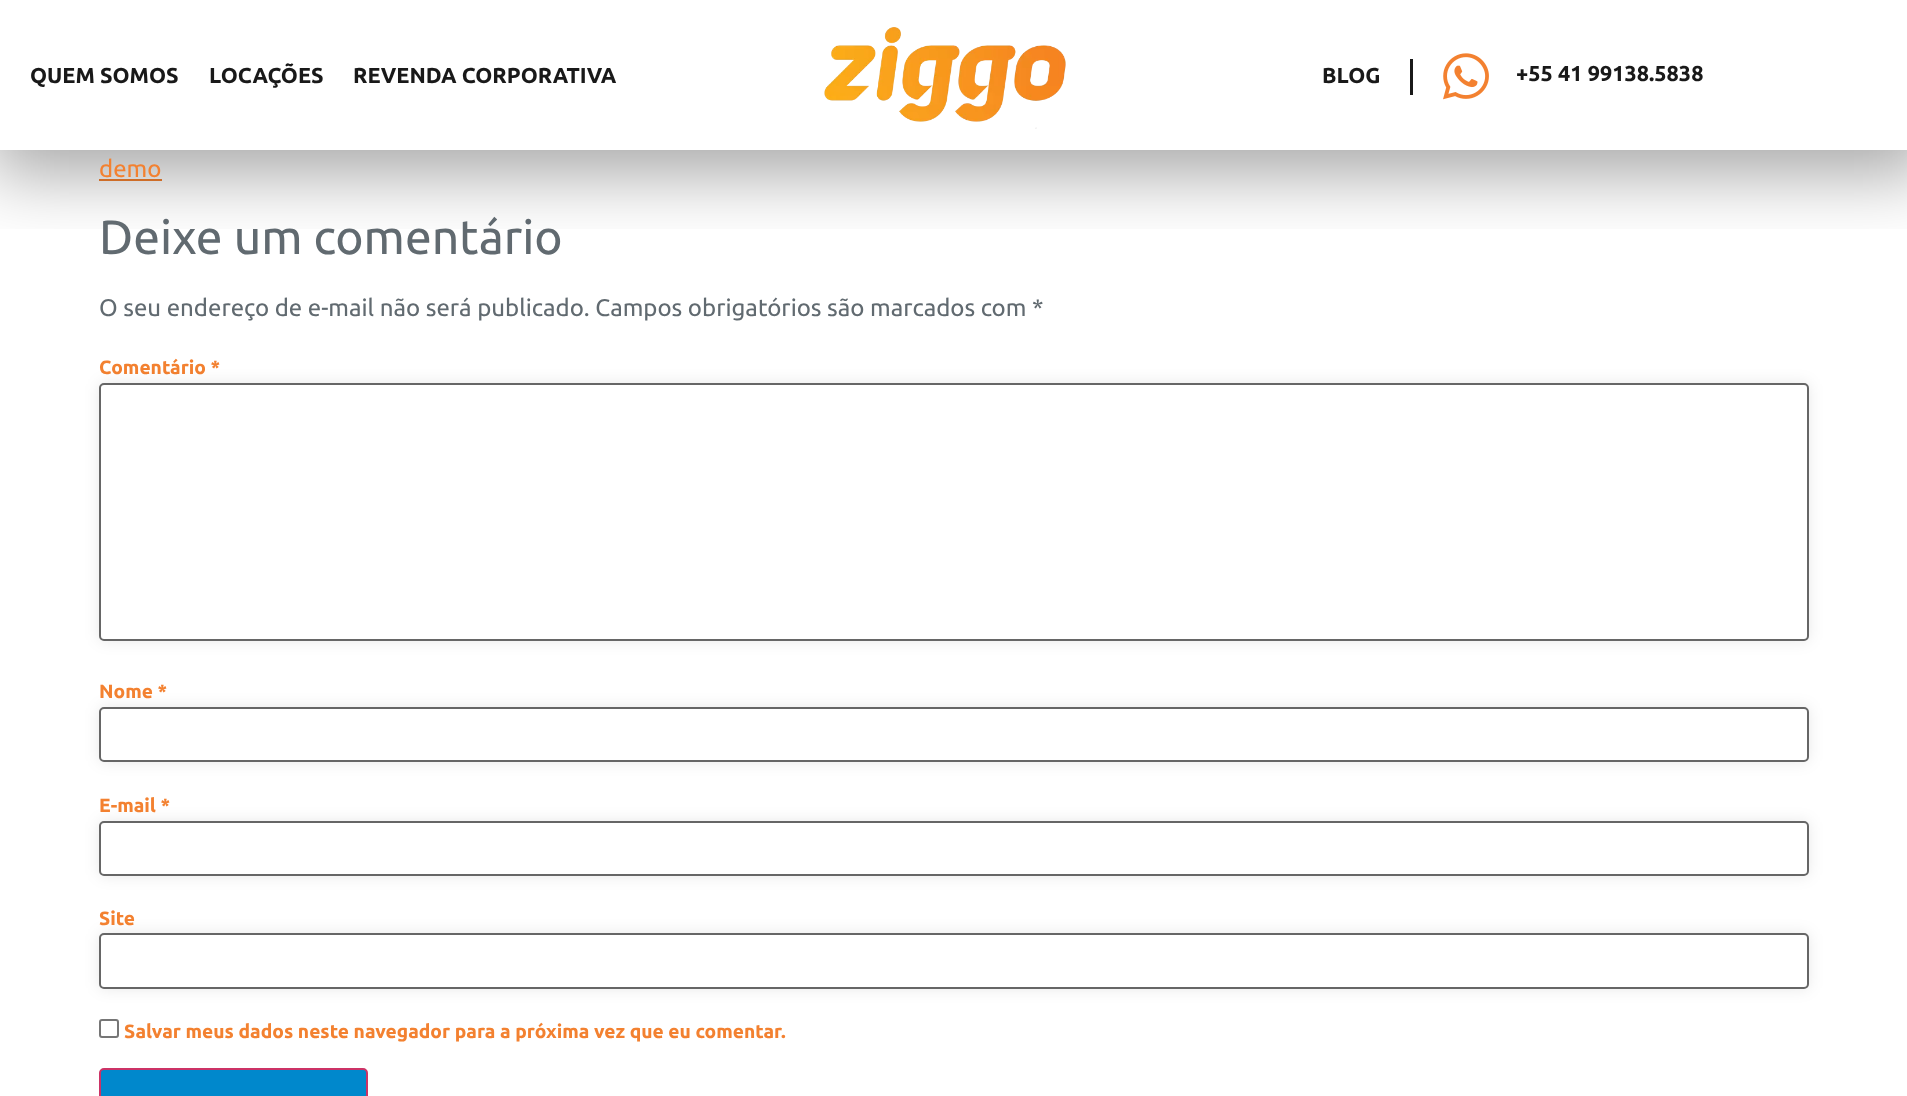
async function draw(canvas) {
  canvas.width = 1907
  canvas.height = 1096
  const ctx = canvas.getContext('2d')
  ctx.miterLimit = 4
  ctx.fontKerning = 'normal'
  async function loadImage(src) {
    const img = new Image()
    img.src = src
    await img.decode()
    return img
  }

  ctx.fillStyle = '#fff'
  ctx.fillRect(0, 0, 1907, 1096)
  ctx.fillStyle = '#f38130'
  ctx.fillRect(99, 179, 63, 2)
  ctx.save()
  ctx.beginPath()
  ctx.rect(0, 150, 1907, 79)
  ctx.clip()
  ctx.fillStyle = '#00000059'
  ctx.filter = 'blur(35px)'
  ctx.beginPath()
  ctx.rect(-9, -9, 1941, 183)
  ctx.fill()
  ctx.filter = 'none'
  ctx.restore()
  ctx.font = 'bold 21.6px Ubuntu'
  ctx.fillStyle = '#191919'
  ctx.fillText('QUEM SOMOS', 30, 83)
  ctx.fillText('LOCAÇÕES', 209, 83)
  ctx.fillText('REVENDA CORPORATIVA', 353, 83)
  ctx.drawImage(await loadImage('image0.png'), 824, 27, 242, 102)
  ctx.fillRect(1410, 59, 3, 36)
  ctx.fillText('BLOG', 1322, 83)
  ctx.drawImage(await loadImage('image1.png'), 1443, 53, 46, 47)
  ctx.fillText('+55 41 99138.5838', 1516, 81)
  ctx.font = '24px Ubuntu'
  ctx.fillStyle = '#f38130'
  ctx.fillText('demo', 99, 177)
  ctx.font = '48px Ubuntu'
  ctx.fillStyle = '#616a70'
  ctx.fillText('Deixe um comentário', 99, 254)
  ctx.font = '24px Ubuntu'
  ctx.fillText('O seu endereço de e-mail não será publicado. Campos obrigatórios são marcados com *', 99, 316)
  ctx.font = 'bold 19.2px Ubuntu'
  ctx.fillStyle = '#f38130'
  ctx.fillText('Comentário *', 99, 374)
  ctx.fillStyle = '#00000017'
  ctx.filter = 'blur(7.5px)'
  ctx.beginPath()
  ctx.roundRect(99, 383, 1710, 258, 5)
  ctx.fill()
  ctx.filter = 'none'
  ctx.fillStyle = '#fff'
  ctx.beginPath()
  ctx.roundRect(100, 384, 1708, 256, 4)
  ctx.fill()
  ctx.strokeStyle = '#666'
  ctx.lineWidth = 2
  ctx.stroke()
  ctx.save()
  ctx.beginPath()
  ctx.moveTo(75, 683)
  ctx.lineTo(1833, 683)
  ctx.lineTo(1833, 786)
  ctx.lineTo(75, 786)
  ctx.closePath()
  ctx.moveTo(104, 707)
  ctx.lineTo(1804, 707)
  ctx.bezierCurveTo(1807, 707, 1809, 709, 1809, 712)
  ctx.lineTo(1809, 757)
  ctx.bezierCurveTo(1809, 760, 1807, 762, 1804, 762)
  ctx.lineTo(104, 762)
  ctx.bezierCurveTo(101, 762, 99, 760, 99, 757)
  ctx.lineTo(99, 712)
  ctx.bezierCurveTo(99, 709, 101, 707, 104, 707)
  ctx.closePath()
  ctx.clip('evenodd')
  ctx.fillStyle = '#00000017'
  ctx.filter = 'blur(7.5px)'
  ctx.beginPath()
  ctx.roundRect(99, 707, 1710, 55, 5)
  ctx.fill()
  ctx.filter = 'none'
  ctx.restore()
  ctx.beginPath()
  ctx.roundRect(100, 708, 1708, 53, 4)
  ctx.stroke()
  ctx.fillStyle = '#f38130'
  ctx.fillText('Nome *', 99, 698)
  ctx.save()
  ctx.beginPath()
  ctx.moveTo(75, 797)
  ctx.lineTo(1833, 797)
  ctx.lineTo(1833, 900)
  ctx.lineTo(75, 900)
  ctx.closePath()
  ctx.moveTo(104, 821)
  ctx.lineTo(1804, 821)
  ctx.bezierCurveTo(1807, 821, 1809, 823, 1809, 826)
  ctx.lineTo(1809, 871)
  ctx.bezierCurveTo(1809, 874, 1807, 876, 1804, 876)
  ctx.lineTo(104, 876)
  ctx.bezierCurveTo(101, 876, 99, 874, 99, 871)
  ctx.lineTo(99, 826)
  ctx.bezierCurveTo(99, 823, 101, 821, 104, 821)
  ctx.closePath()
  ctx.clip('evenodd')
  ctx.fillStyle = '#00000017'
  ctx.filter = 'blur(7.5px)'
  ctx.beginPath()
  ctx.roundRect(99, 821, 1710, 55, 5)
  ctx.fill()
  ctx.filter = 'none'
  ctx.restore()
  ctx.beginPath()
  ctx.roundRect(100, 822, 1708, 53, 4)
  ctx.stroke()
  ctx.fillText('E-mail *', 99, 812)
  ctx.fillStyle = '#00000017'
  ctx.filter = 'blur(7.5px)'
  ctx.beginPath()
  ctx.roundRect(99, 933, 1710, 56, 5)
  ctx.fill()
  ctx.filter = 'none'
  ctx.fillStyle = '#fff'
  ctx.beginPath()
  ctx.roundRect(100, 934, 1708, 54, 4)
  ctx.fill()
  ctx.stroke()
  ctx.fillStyle = '#f38130'
  ctx.fillText('Site', 99, 925)
  ctx.beginPath()
  ctx.roundRect(100, 1020, 18, 17, 2)
  ctx.strokeStyle = '#767676'
  ctx.stroke()
  ctx.fillText('Salvar meus dados neste navegador para a próxima vez que eu comentar.', 124, 1038)
  ctx.fillStyle = '#08c'
  ctx.beginPath()
  ctx.roundRect(100, 1069, 267, 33, 4)
  ctx.fill()
  ctx.strokeStyle = '#c36'
  ctx.stroke()
}

draw(document.querySelector('canvas'))
